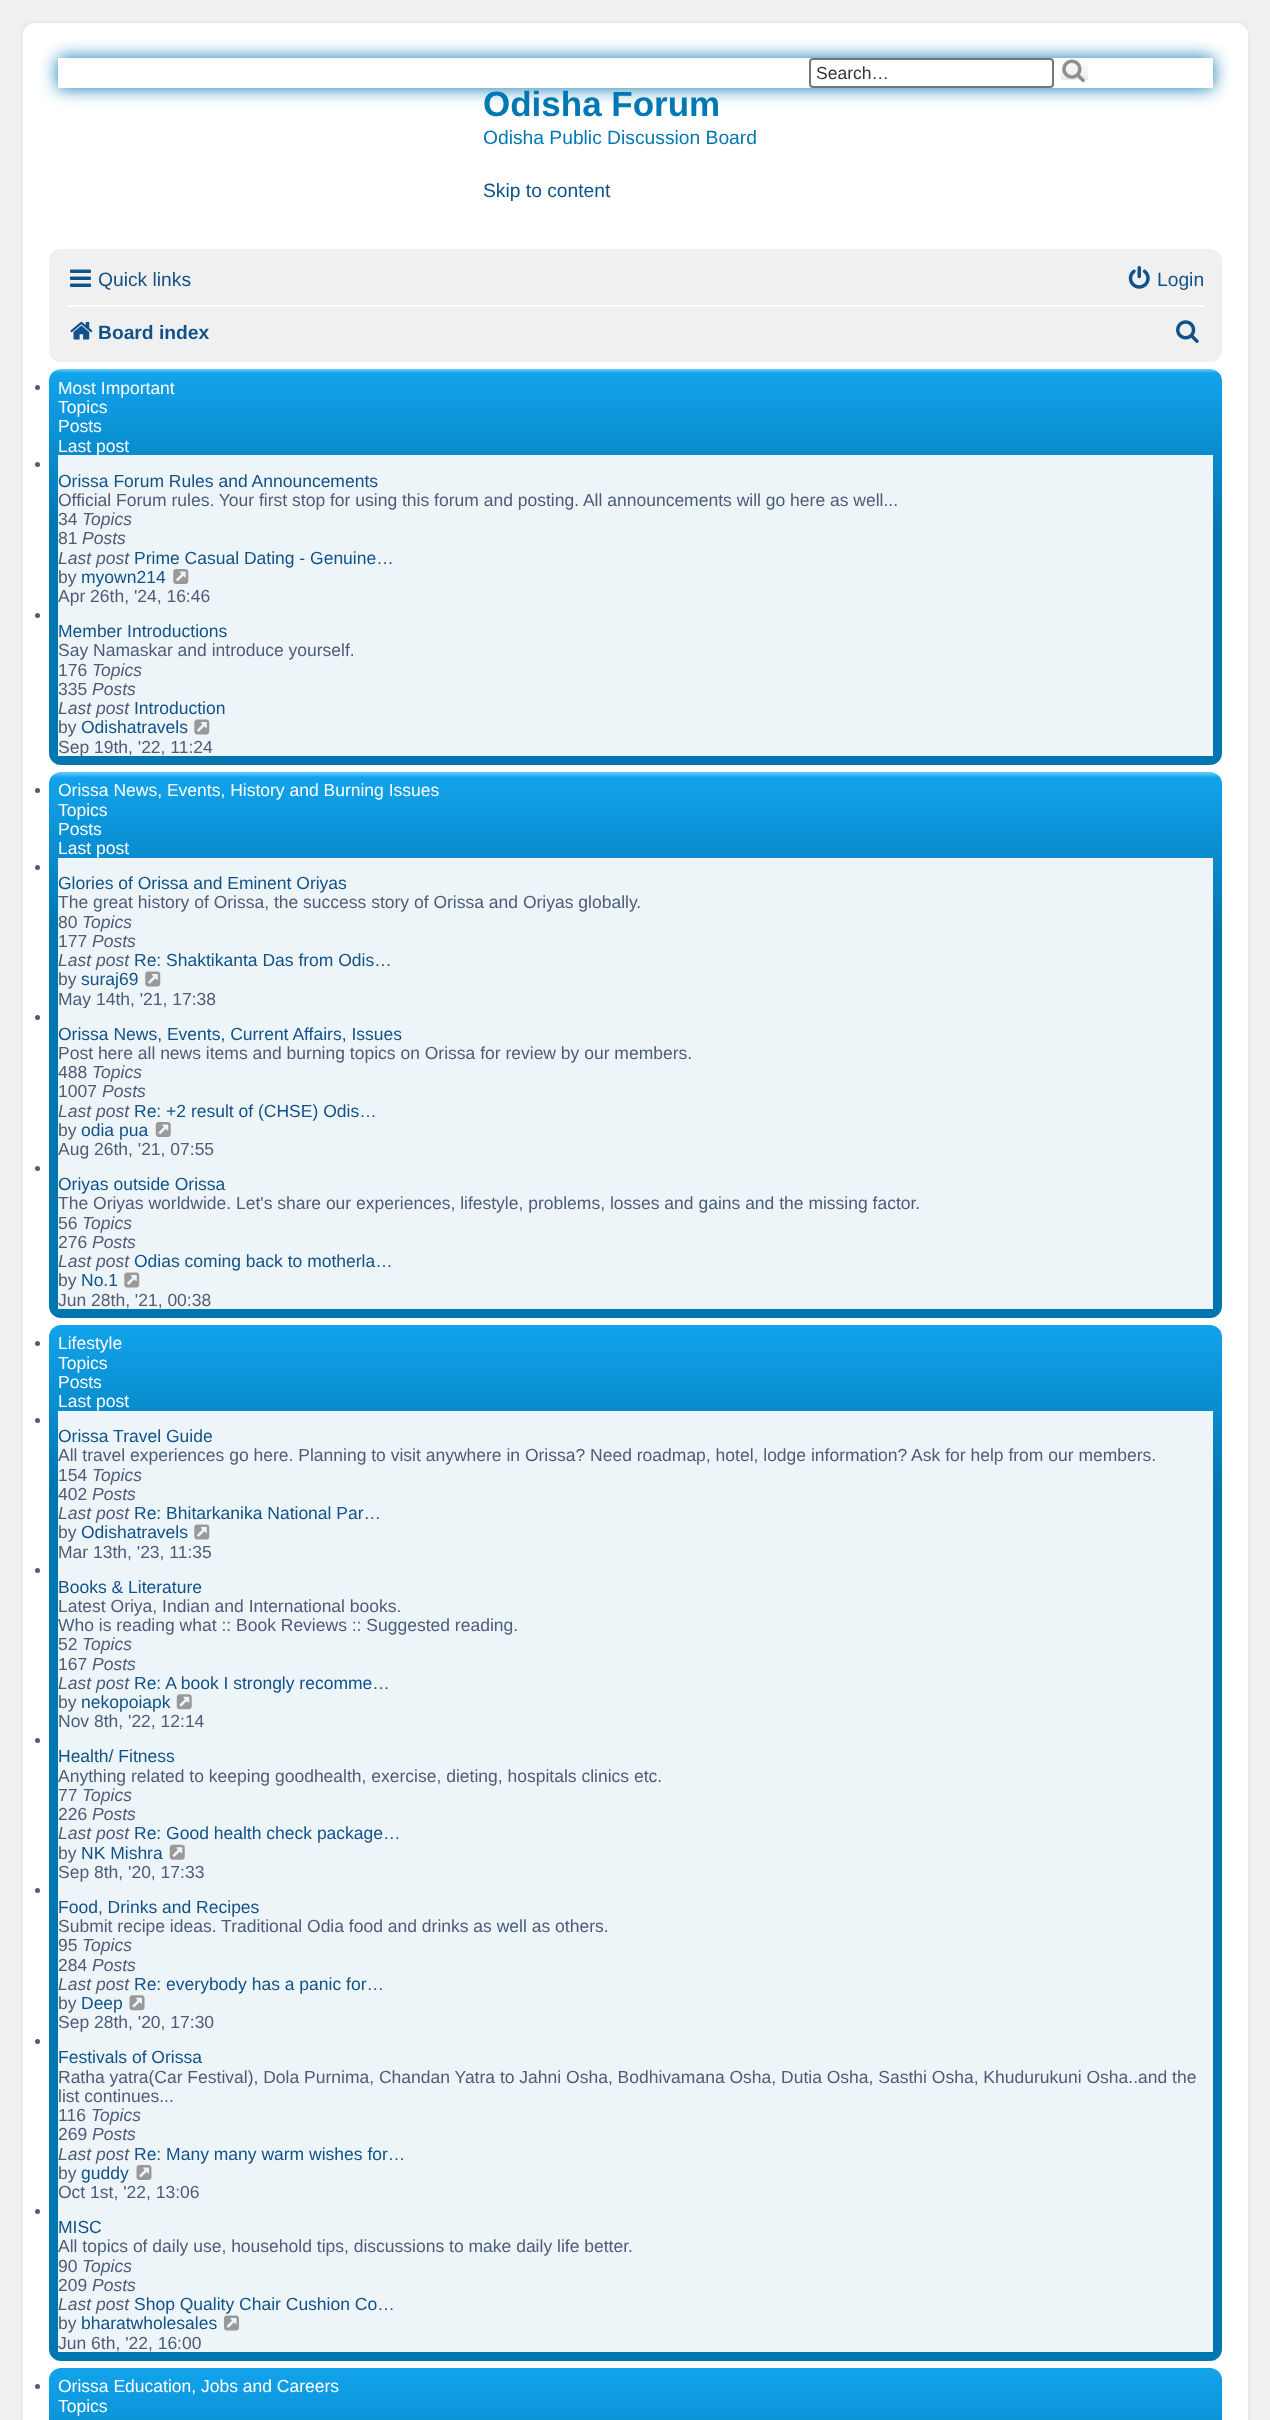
async function draw(canvas) {
  canvas.width = 1270
  canvas.height = 2420
  const ctx = canvas.getContext('2d')
  ctx.miterLimit = 4
  ctx.fontKerning = 'normal'
  async function loadImage(src) {
    const img = new Image()
    img.src = src
    await img.decode()
    return img
  }
  let gradient

  ctx.fillStyle = '#f1f0f0'
  ctx.fillRect(0, 0, 1270, 2420)
  ctx.fillStyle = '#fff'
  ctx.beginPath()
  ctx.roundRect(22, 22, 1227, 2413, 13)
  ctx.fill()
  ctx.strokeStyle = '#e6e9ed'
  ctx.lineWidth = 2
  ctx.stroke()
  ctx.save()
  ctx.beginPath()
  ctx.moveTo(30, 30)
  ctx.lineTo(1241, 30)
  ctx.lineTo(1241, 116)
  ctx.lineTo(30, 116)
  ctx.closePath()
  ctx.moveTo(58, 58)
  ctx.lineTo(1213, 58)
  ctx.lineTo(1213, 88)
  ctx.lineTo(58, 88)
  ctx.closePath()
  ctx.clip('evenodd')
  ctx.fillStyle = '#0075b0'
  ctx.filter = 'blur(9px)'
  ctx.beginPath()
  ctx.rect(58, 58, 1155, 30)
  ctx.fill()
  ctx.filter = 'none'
  ctx.restore()
  ctx.beginPath()
  ctx.roundRect(810, 59, 243, 28, 3)
  ctx.fill()
  ctx.strokeStyle = '#767676'
  ctx.stroke()
  ctx.font = '17.5px Liberation Sans'
  ctx.fillStyle = '#333'
  ctx.fillText('Search…', 816, 79)
  gradient = ctx.createLinearGradient(1075, 58, 1075, 82)
  gradient.addColorStop(0, '#fff')
  gradient.addColorStop(1, '#e9e9e9')
  ctx.fillStyle = gradient
  ctx.fillRect(1061, 61, 27, 19)
  ctx.drawImage(await loadImage('image0.png'), 1062, 59, 23, 24)
  ctx.font = 'bold 35px Liberation Sans'
  ctx.fillStyle = '#0178b4'
  ctx.fillText('Odisha Forum', 483, 116)
  ctx.font = '19.25px Liberation Sans'
  ctx.fillText('Odisha Public Discussion Board', 483, 144)
  ctx.fillStyle = '#105289'
  ctx.fillText('Skip to content', 483, 197)
  ctx.fillStyle = '#f1f0f0'
  ctx.beginPath()
  ctx.roundRect(49, 249, 1173, 113, 12)
  ctx.fill()
  ctx.drawImage(await loadImage('image1.png'), 70, 269, 21, 18)
  ctx.fillStyle = '#105289'
  ctx.fillText('Quick links', 98, 286)
  ctx.drawImage(await loadImage('image2.png'), 1128, 266, 22, 23)
  ctx.fillText('Login', 1157, 286)
  ctx.fillStyle = '#fff'
  ctx.fillRect(67, 305, 1137, 2)
  ctx.drawImage(await loadImage('image3.png'), 70, 322, 23, 18)
  ctx.font = 'bold 19.25px Liberation Sans'
  ctx.fillStyle = '#105289'
  ctx.fillText('Board index', 98, 339)
  ctx.drawImage(await loadImage('image4.png'), 1176, 320, 23, 23)
  gradient = ctx.createLinearGradient(635, 369, 635, 765)
  gradient.addColorStop(0, '#6aceff')
  gradient.addColorStop(0.01, '#12a3eb')
  gradient.addColorStop(0.41, '#0076b1')
  gradient.addColorStop(1, '#0076b1')
  ctx.fillStyle = gradient
  ctx.beginPath()
  ctx.roundRect(49, 369, 1173, 396, 12)
  ctx.fill()
  ctx.fillStyle = '#4c5d77'
  ctx.beginPath()
  ctx.arc(37.5, 387.5, 2.5, 0, 2 * Math.PI)
  ctx.fill()
  ctx.font = '17.5px Liberation Sans'
  ctx.fillStyle = '#fff'
  ctx.fillText('Most Important', 58, 394)
  ctx.fillText('Topics', 58, 413)
  ctx.fillText('Posts', 58, 432)
  ctx.save()
  ctx.beginPath()
  ctx.rect(58, 378, 1155, 77)
  ctx.clip()
  ctx.fillText('Last post', 58, 452)
  ctx.restore()
  ctx.fillStyle = '#eef5f9'
  ctx.fillRect(58, 455, 1155, 301)
  ctx.fillStyle = '#4c5d77'
  ctx.beginPath()
  ctx.arc(37.5, 464.5, 2.5, 0, 2 * Math.PI)
  ctx.fill()
  ctx.fillStyle = '#105289'
  ctx.fillText('Orissa Forum Rules and Announcements', 58, 487)
  ctx.fillStyle = '#4c5d77'
  ctx.fillText('Official Forum rules. Your first stop for using this forum and posting. All announcements will go here as well...', 58, 506)
  ctx.fillText('34', 58, 525)
  ctx.font = 'italic 17.5px Liberation Sans'
  ctx.fillText('Topics', 82, 525)
  ctx.font = '17.5px Liberation Sans'
  ctx.fillText('81', 58, 544)
  ctx.font = 'italic 17.5px Liberation Sans'
  ctx.fillText('Posts', 82, 544)
  ctx.fillText('Last post', 58, 564)
  ctx.font = '17.5px Liberation Sans'
  ctx.fillStyle = '#105289'
  ctx.fillText('Prime Сasual Dating - Genuine…', 134, 564)
  ctx.fillStyle = '#4c5d77'
  ctx.fillText('by', 58, 583)
  ctx.fillStyle = '#105289'
  ctx.fillText('myown214', 81, 583)
  ctx.drawImage(await loadImage('image5.png'), 173, 569, 16, 15)
  ctx.fillStyle = '#4c5d77'
  ctx.fillText('Apr 26th, \'24, 16:46', 58, 602)
  ctx.beginPath()
  ctx.arc(37.5, 615.5, 2.5, 0, 2 * Math.PI)
  ctx.fill()
  ctx.fillStyle = '#105289'
  ctx.fillText('Member Introductions', 58, 637)
  ctx.fillStyle = '#4c5d77'
  ctx.fillText('Say Namaskar and introduce yourself.', 58, 656)
  ctx.fillText('176', 58, 676)
  ctx.font = 'italic 17.5px Liberation Sans'
  ctx.fillText('Topics', 92, 676)
  ctx.font = '17.5px Liberation Sans'
  ctx.fillText('335', 58, 695)
  ctx.font = 'italic 17.5px Liberation Sans'
  ctx.fillText('Posts', 92, 695)
  ctx.fillText('Last post', 58, 714)
  ctx.font = '17.5px Liberation Sans'
  ctx.fillStyle = '#105289'
  ctx.fillText('Introduction', 134, 714)
  ctx.fillStyle = '#4c5d77'
  ctx.fillText('by', 58, 733)
  ctx.fillStyle = '#105289'
  ctx.fillText('Odishatravels', 81, 733)
  ctx.drawImage(await loadImage('image6.png'), 194, 719, 16, 16)
  ctx.fillStyle = '#4c5d77'
  ctx.fillText('Sep 19th, \'22, 11:24', 58, 753)
  gradient = ctx.createLinearGradient(635, 772, 635, 1318)
  gradient.addColorStop(0, '#6aceff')
  gradient.addColorStop(0.01, '#12a3eb')
  gradient.addColorStop(0.29, '#0076b1')
  gradient.addColorStop(1, '#0076b1')
  ctx.fillStyle = gradient
  ctx.beginPath()
  ctx.roundRect(49, 772, 1173, 546, 12)
  ctx.fill()
  ctx.fillStyle = '#4c5d77'
  ctx.beginPath()
  ctx.arc(37.5, 790.5, 2.5, 0, 2 * Math.PI)
  ctx.fill()
  ctx.fillStyle = '#fff'
  ctx.fillText('Orissa News, Events, History and Burning Issues', 58, 796)
  ctx.fillText('Topics', 58, 816)
  ctx.fillText('Posts', 58, 835)
  ctx.fillText('Last post', 58, 854)
  ctx.fillStyle = '#eef5f9'
  ctx.fillRect(58, 858, 1155, 451)
  ctx.fillStyle = '#4c5d77'
  ctx.beginPath()
  ctx.arc(37.5, 867.5, 2.5, 0, 2 * Math.PI)
  ctx.fill()
  ctx.fillStyle = '#105289'
  ctx.fillText('Glories of Orissa and Eminent Oriyas', 58, 889)
  ctx.fillStyle = '#4c5d77'
  ctx.fillText('The great history of Orissa, the success story of Orissa and Oriyas globally.', 58, 908)
  ctx.fillText('80', 58, 928)
  ctx.font = 'italic 17.5px Liberation Sans'
  ctx.fillText('Topics', 82, 928)
  ctx.font = '17.5px Liberation Sans'
  ctx.fillText('177', 58, 947)
  ctx.font = 'italic 17.5px Liberation Sans'
  ctx.fillText('Posts', 92, 947)
  ctx.fillText('Last post', 58, 966)
  ctx.font = '17.5px Liberation Sans'
  ctx.fillStyle = '#105289'
  ctx.fillText('Re: Shaktikanta Das from Odis…', 134, 966)
  ctx.fillStyle = '#4c5d77'
  ctx.fillText('by', 58, 985)
  ctx.fillStyle = '#105289'
  ctx.fillText('suraj69', 81, 985)
  ctx.drawImage(await loadImage('image7.png'), 145, 971, 16, 16)
  ctx.save()
  ctx.beginPath()
  ctx.rect(58, 873, 1155, 135)
  ctx.clip()
  ctx.fillStyle = '#4c5d77'
  ctx.fillText('May 14th, \'21, 17:38', 58, 1005)
  ctx.restore()
  ctx.fillStyle = '#4c5d77'
  ctx.beginPath()
  ctx.arc(37.5, 1017.5, 2.5, 0, 2 * Math.PI)
  ctx.fill()
  ctx.fillStyle = '#105289'
  ctx.fillText('Orissa News, Events, Current Affairs, Issues', 58, 1040)
  ctx.fillStyle = '#4c5d77'
  ctx.fillText('Post here all news items and burning topics on Orissa for review by our members.', 58, 1059)
  ctx.fillText('488', 58, 1078)
  ctx.font = 'italic 17.5px Liberation Sans'
  ctx.fillText('Topics', 92, 1078)
  ctx.font = '17.5px Liberation Sans'
  ctx.fillText('1007', 58, 1097)
  ctx.font = 'italic 17.5px Liberation Sans'
  ctx.fillText('Posts', 102, 1097)
  ctx.fillText('Last post', 58, 1117)
  ctx.font = '17.5px Liberation Sans'
  ctx.fillStyle = '#105289'
  ctx.fillText('Re: +2 result of (CHSE) Odis…', 134, 1117)
  ctx.fillStyle = '#4c5d77'
  ctx.fillText('by', 58, 1136)
  ctx.fillStyle = '#105289'
  ctx.fillText('odia pua', 81, 1136)
  ctx.drawImage(await loadImage('image8.png'), 155, 1122, 16, 15)
  ctx.fillStyle = '#4c5d77'
  ctx.fillText('Aug 26th, \'21, 07:55', 58, 1155)
  ctx.beginPath()
  ctx.arc(37.5, 1168.5, 2.5, 0, 2 * Math.PI)
  ctx.fill()
  ctx.fillStyle = '#105289'
  ctx.fillText('Oriyas outside Orissa', 58, 1190)
  ctx.fillStyle = '#4c5d77'
  ctx.fillText('The Oriyas worldwide. Let\'s share our experiences, lifestyle, problems, losses and gains and the missing factor.', 58, 1209)
  ctx.fillText('56', 58, 1229)
  ctx.font = 'italic 17.5px Liberation Sans'
  ctx.fillText('Topics', 82, 1229)
  ctx.font = '17.5px Liberation Sans'
  ctx.fillText('276', 58, 1248)
  ctx.font = 'italic 17.5px Liberation Sans'
  ctx.fillText('Posts', 92, 1248)
  ctx.fillText('Last post', 58, 1267)
  ctx.font = '17.5px Liberation Sans'
  ctx.fillStyle = '#105289'
  ctx.fillText('Odias coming back to motherla…', 134, 1267)
  ctx.fillStyle = '#4c5d77'
  ctx.fillText('by', 58, 1286)
  ctx.fillStyle = '#105289'
  ctx.fillText('No.1', 81, 1286)
  ctx.drawImage(await loadImage('image6.png'), 124, 1272, 16, 16)
  ctx.fillStyle = '#4c5d77'
  ctx.fillText('Jun 28th, \'21, 00:38', 58, 1306)
  gradient = ctx.createLinearGradient(635, 1325, 635, 2361)
  gradient.addColorStop(0, '#6aceff')
  gradient.addColorStop(0, '#12a3eb')
  gradient.addColorStop(0.16, '#0076b1')
  gradient.addColorStop(1, '#0076b1')
  ctx.fillStyle = gradient
  ctx.beginPath()
  ctx.roundRect(49, 1325, 1173, 1036, 12)
  ctx.fill()
  ctx.fillStyle = '#4c5d77'
  ctx.beginPath()
  ctx.arc(37.5, 1343.5, 2.5, 0, 2 * Math.PI)
  ctx.fill()
  ctx.fillStyle = '#fff'
  ctx.fillText('Lifestyle', 58, 1349)
  ctx.fillText('Topics', 58, 1369)
  ctx.fillText('Posts', 58, 1388)
  ctx.fillText('Last post', 58, 1407)
  ctx.fillStyle = '#eef5f9'
  ctx.fillRect(58, 1411, 1155, 941)
  ctx.fillStyle = '#4c5d77'
  ctx.beginPath()
  ctx.arc(37.5, 1420.5, 2.5, 0, 2 * Math.PI)
  ctx.fill()
  ctx.fillStyle = '#105289'
  ctx.fillText('Orissa Travel Guide', 58, 1442)
  ctx.fillStyle = '#4c5d77'
  ctx.fillText('All travel experiences go here. Planning to visit anywhere in Orissa? Need roadmap, hotel, lodge information? Ask for help from our members.', 58, 1461)
  ctx.fillText('154', 58, 1481)
  ctx.font = 'italic 17.5px Liberation Sans'
  ctx.fillText('Topics', 92, 1481)
  ctx.font = '17.5px Liberation Sans'
  ctx.fillText('402', 58, 1500)
  ctx.font = 'italic 17.5px Liberation Sans'
  ctx.fillText('Posts', 92, 1500)
  ctx.fillText('Last post', 58, 1519)
  ctx.font = '17.5px Liberation Sans'
  ctx.fillStyle = '#105289'
  ctx.fillText('Re: Bhitarkanika National Par…', 134, 1519)
  ctx.fillStyle = '#4c5d77'
  ctx.fillText('by', 58, 1538)
  ctx.fillStyle = '#105289'
  ctx.fillText('Odishatravels', 81, 1538)
  ctx.drawImage(await loadImage('image6.png'), 194, 1524, 16, 16)
  ctx.fillStyle = '#4c5d77'
  ctx.fillText('Mar 13th, \'23, 11:35', 58, 1558)
  ctx.beginPath()
  ctx.arc(37.5, 1570.5, 2.5, 0, 2 * Math.PI)
  ctx.fill()
  ctx.fillStyle = '#105289'
  ctx.fillText('Books & Literature', 58, 1593)
  ctx.fillStyle = '#4c5d77'
  ctx.fillText('Latest Oriya, Indian and International books.', 58, 1612)
  ctx.fillText('Who is reading what :: Book Reviews :: Suggested reading.', 58, 1631)
  ctx.fillText('52', 58, 1650)
  ctx.font = 'italic 17.5px Liberation Sans'
  ctx.fillText('Topics', 82, 1650)
  ctx.font = '17.5px Liberation Sans'
  ctx.fillText('167', 58, 1670)
  ctx.font = 'italic 17.5px Liberation Sans'
  ctx.fillText('Posts', 92, 1670)
  ctx.fillText('Last post', 58, 1689)
  ctx.font = '17.5px Liberation Sans'
  ctx.fillStyle = '#105289'
  ctx.fillText('Re: A book I strongly recomme…', 134, 1689)
  ctx.fillStyle = '#4c5d77'
  ctx.fillText('by', 58, 1708)
  ctx.fillStyle = '#105289'
  ctx.fillText('nekopoiapk', 81, 1708)
  ctx.drawImage(await loadImage('image9.png'), 176, 1694, 16, 16)
  ctx.fillStyle = '#4c5d77'
  ctx.fillText('Nov 8th, \'22, 12:14', 58, 1727)
  ctx.beginPath()
  ctx.arc(37.5, 1740.5, 2.5, 0, 2 * Math.PI)
  ctx.fill()
  ctx.fillStyle = '#105289'
  ctx.fillText('Health/ Fitness', 58, 1762)
  ctx.fillStyle = '#4c5d77'
  ctx.fillText('Anything related to keeping goodhealth, exercise, dieting, hospitals clinics etc.', 58, 1782)
  ctx.fillText('77', 58, 1801)
  ctx.font = 'italic 17.5px Liberation Sans'
  ctx.fillText('Topics', 82, 1801)
  ctx.font = '17.5px Liberation Sans'
  ctx.fillText('226', 58, 1820)
  ctx.font = 'italic 17.5px Liberation Sans'
  ctx.fillText('Posts', 92, 1820)
  ctx.fillText('Last post', 58, 1839)
  ctx.font = '17.5px Liberation Sans'
  ctx.fillStyle = '#105289'
  ctx.fillText('Re: Good health check package…', 134, 1839)
  ctx.fillStyle = '#4c5d77'
  ctx.fillText('by', 58, 1859)
  ctx.fillStyle = '#105289'
  ctx.fillText('NK Mishra', 81, 1859)
  ctx.drawImage(await loadImage('image10.png'), 169, 1844, 16, 16)
  ctx.fillStyle = '#4c5d77'
  ctx.fillText('Sep 8th, \'20, 17:33', 58, 1878)
  ctx.beginPath()
  ctx.arc(37.5, 1890.5, 2.5, 0, 2 * Math.PI)
  ctx.fill()
  ctx.fillStyle = '#105289'
  ctx.fillText('Food, Drinks and Recipes', 58, 1913)
  ctx.fillStyle = '#4c5d77'
  ctx.fillText('Submit recipe ideas. Traditional Odia food and drinks as well as others.', 58, 1932)
  ctx.fillText('95', 58, 1951)
  ctx.font = 'italic 17.5px Liberation Sans'
  ctx.fillText('Topics', 82, 1951)
  ctx.font = '17.5px Liberation Sans'
  ctx.fillText('284', 58, 1971)
  ctx.font = 'italic 17.5px Liberation Sans'
  ctx.fillText('Posts', 92, 1971)
  ctx.fillText('Last post', 58, 1990)
  ctx.font = '17.5px Liberation Sans'
  ctx.fillStyle = '#105289'
  ctx.fillText('Re: everybody has a panic for…', 134, 1990)
  ctx.fillStyle = '#4c5d77'
  ctx.fillText('by', 58, 2009)
  ctx.fillStyle = '#105289'
  ctx.fillText('Deep', 81, 2009)
  ctx.drawImage(await loadImage('image11.png'), 129, 1995, 16, 16)
  ctx.fillStyle = '#4c5d77'
  ctx.fillText('Sep 28th, \'20, 17:30', 58, 2028)
  ctx.beginPath()
  ctx.arc(37.5, 2041.5, 2.5, 0, 2 * Math.PI)
  ctx.fill()
  ctx.fillStyle = '#105289'
  ctx.fillText('Festivals of Orissa', 58, 2063)
  ctx.fillStyle = '#4c5d77'
  ctx.fillText('Ratha yatra(Car Festival), Dola Purnima, Chandan Yatra to Jahni Osha, Bodhivamana Osha, Dutia Osha, Sasthi Osha, Khudurukuni Osha..and the', 58, 2083)
  ctx.fillText('list continues...', 58, 2102)
  ctx.fillText('116', 58, 2121)
  ctx.font = 'italic 17.5px Liberation Sans'
  ctx.fillText('Topics', 91, 2121)
  ctx.font = '17.5px Liberation Sans'
  ctx.fillText('269', 58, 2140)
  ctx.font = 'italic 17.5px Liberation Sans'
  ctx.fillText('Posts', 92, 2140)
  ctx.fillText('Last post', 58, 2160)
  ctx.font = '17.5px Liberation Sans'
  ctx.fillStyle = '#105289'
  ctx.fillText('Re: Many many warm wishes for…', 134, 2160)
  ctx.fillStyle = '#4c5d77'
  ctx.fillText('by', 58, 2179)
  ctx.fillStyle = '#105289'
  ctx.fillText('guddy', 81, 2179)
  ctx.drawImage(await loadImage('image12.png'), 136, 2165, 16, 15)
  ctx.fillStyle = '#4c5d77'
  ctx.fillText('Oct 1st, \'22, 13:06', 58, 2198)
  ctx.beginPath()
  ctx.arc(37.5, 2211.5, 2.5, 0, 2 * Math.PI)
  ctx.fill()
  ctx.fillStyle = '#105289'
  ctx.fillText('MISC', 58, 2233)
  ctx.fillStyle = '#4c5d77'
  ctx.fillText('All topics of daily use, household tips, discussions to make daily life better.', 58, 2252)
  ctx.fillText('90', 58, 2272)
  ctx.font = 'italic 17.5px Liberation Sans'
  ctx.fillText('Topics', 82, 2272)
  ctx.font = '17.5px Liberation Sans'
  ctx.fillText('209', 58, 2291)
  ctx.font = 'italic 17.5px Liberation Sans'
  ctx.fillText('Posts', 92, 2291)
  ctx.fillText('Last post', 58, 2310)
  ctx.font = '17.5px Liberation Sans'
  ctx.fillStyle = '#105289'
  ctx.fillText('Shop Quality Chair Cushion Co…', 134, 2310)
  ctx.fillStyle = '#4c5d77'
  ctx.fillText('by', 58, 2329)
  ctx.fillStyle = '#105289'
  ctx.fillText('bharatwholesales', 81, 2329)
  ctx.drawImage(await loadImage('image13.png'), 224, 2315, 15, 16)
  ctx.fillStyle = '#4c5d77'
  ctx.fillText('Jun 6th, \'22, 16:00', 58, 2349)
  gradient = ctx.createLinearGradient(635, 2368, 635, 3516)
  gradient.addColorStop(0, '#6aceff')
  gradient.addColorStop(0, '#12a3eb')
  gradient.addColorStop(0.14, '#0076b1')
  gradient.addColorStop(1, '#0076b1')
  ctx.fillStyle = gradient
  ctx.beginPath()
  ctx.roundRect(49, 2368, 1173, 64, 12)
  ctx.fill()
  ctx.fillStyle = '#4c5d77'
  ctx.beginPath()
  ctx.arc(37.5, 2386.5, 2.5, 0, 2 * Math.PI)
  ctx.fill()
  ctx.fillStyle = '#fff'
  ctx.fillText('Orissa Education, Jobs and Careers', 58, 2392)
  ctx.fillText('Topics', 58, 2412)
}

draw(document.querySelector('canvas'))
